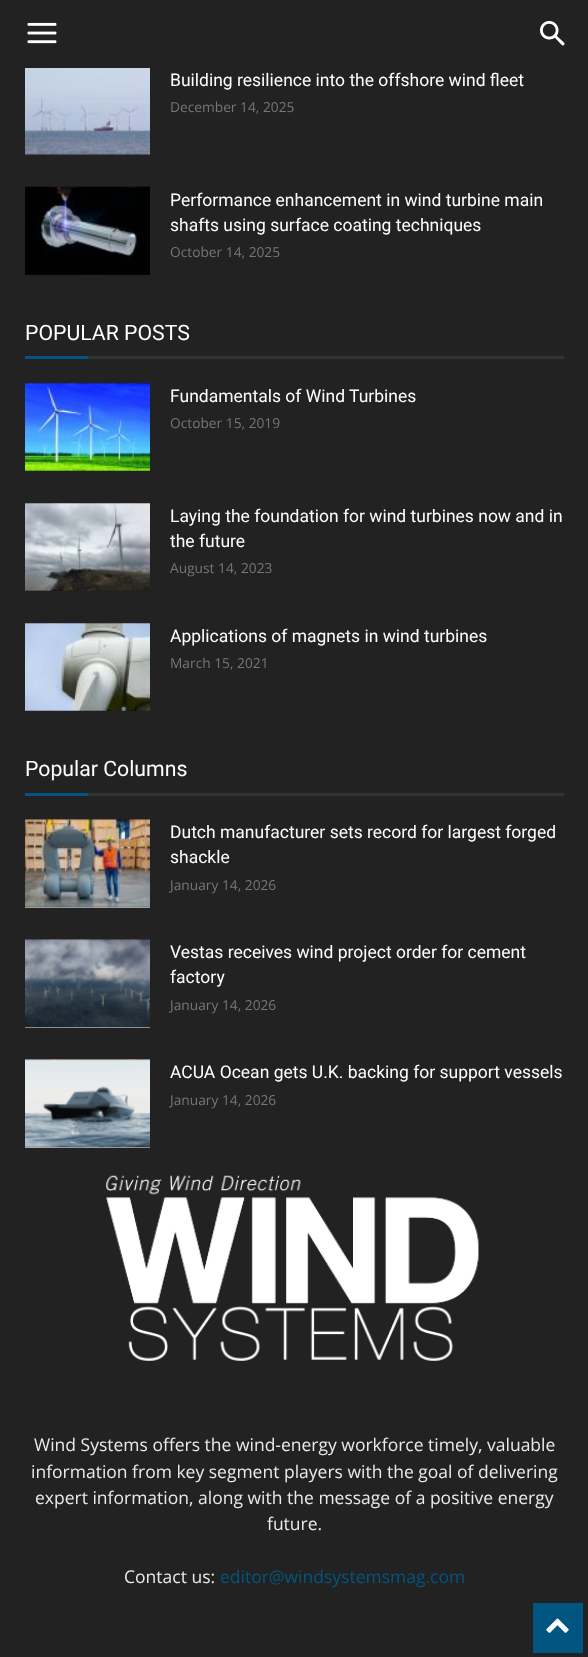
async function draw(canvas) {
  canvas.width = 588
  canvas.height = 1657
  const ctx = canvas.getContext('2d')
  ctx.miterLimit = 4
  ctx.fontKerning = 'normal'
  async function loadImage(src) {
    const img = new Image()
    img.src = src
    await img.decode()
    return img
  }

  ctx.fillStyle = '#222'
  ctx.fillRect(0, 0, 588, 1657)
  ctx.drawImage(await loadImage('image0.png'), 27, 22, 30, 22)
  ctx.drawImage(await loadImage('image1.png'), 540, 21, 25, 25)
  ctx.drawImage(await loadImage('image2.png'), 25, 153, 125, 2)
  ctx.drawImage(await loadImage('image3.png'), 25, 68, 125, 87)
  ctx.font = '17.5px Roboto'
  ctx.fillStyle = '#fff'
  ctx.fillText('Building resilience into the offshore wind fleet', 170, 86)
  ctx.font = '13.75px Open Sans'
  ctx.fillStyle = '#767676'
  ctx.fillText('December 14, 2025', 170, 112)
  ctx.drawImage(await loadImage('image4.png'), 25, 186, 125, 89)
  ctx.drawImage(await loadImage('image5.png'), 25, 186, 125, 89)
  ctx.font = '17.5px Roboto'
  ctx.fillStyle = '#fff'
  ctx.fillText('Performance enhancement in wind turbine main', 170, 206)
  ctx.fillText('shafts using surface coating techniques', 170, 231)
  ctx.font = '13.75px Open Sans'
  ctx.fillStyle = '#767676'
  ctx.fillText('October 14, 2025', 170, 257)
  ctx.font = '21.25px Roboto'
  ctx.fillStyle = '#fff'
  ctx.fillText('POPULAR POSTS', 25, 340)
  ctx.fillStyle = '#005681'
  ctx.fillRect(25, 356, 63, 3)
  ctx.fillStyle = '#333'
  ctx.fillRect(88, 356, 476, 3)
  ctx.drawImage(await loadImage('image6.png'), 25, 383, 125, 88)
  ctx.drawImage(await loadImage('image7.png'), 25, 383, 125, 88)
  ctx.font = '17.5px Roboto'
  ctx.fillStyle = '#fff'
  ctx.fillText('Fundamentals of Wind Turbines', 170, 402)
  ctx.font = '13.75px Open Sans'
  ctx.fillStyle = '#767676'
  ctx.fillText('October 15, 2019', 170, 428)
  ctx.drawImage(await loadImage('image6.png'), 25, 503, 125, 88)
  ctx.drawImage(await loadImage('image8.png'), 25, 503, 125, 88)
  ctx.font = '17.5px Roboto'
  ctx.fillStyle = '#fff'
  ctx.fillText('Laying the foundation for wind turbines now and in', 170, 522)
  ctx.fillText('the future', 170, 547)
  ctx.font = '13.75px Open Sans'
  ctx.fillStyle = '#767676'
  ctx.fillText('August 14, 2023', 170, 573)
  ctx.drawImage(await loadImage('image6.png'), 25, 623, 125, 88)
  ctx.drawImage(await loadImage('image9.png'), 25, 623, 125, 88)
  ctx.font = '17.5px Roboto'
  ctx.fillStyle = '#fff'
  ctx.fillText('Applications of magnets in wind turbines', 170, 642)
  ctx.font = '13.75px Open Sans'
  ctx.fillStyle = '#767676'
  ctx.fillText('March 15, 2021', 170, 668)
  ctx.font = '21.25px Roboto'
  ctx.fillStyle = '#fff'
  ctx.fillText('Popular Columns', 25, 776)
  ctx.fillStyle = '#005681'
  ctx.fillRect(25, 793, 63, 3)
  ctx.fillStyle = '#333'
  ctx.fillRect(88, 793, 476, 3)
  ctx.fillStyle = '#ccc'
  ctx.fillRect(25, 820, 125, 88)
  ctx.drawImage(await loadImage('image10.png'), 25, 819, 125, 89)
  ctx.drawImage(await loadImage('image11.png'), 25, 819, 125, 89)
  ctx.font = '17.5px Roboto'
  ctx.fillStyle = '#fff'
  ctx.fillText('Dutch manufacturer sets record for largest forged', 170, 838)
  ctx.fillText('shackle', 170, 863)
  ctx.font = '13.75px Open Sans'
  ctx.fillStyle = '#767676'
  ctx.fillText('January 14, 2026', 170, 890)
  ctx.fillStyle = '#ccc'
  ctx.fillRect(25, 940, 125, 88)
  ctx.drawImage(await loadImage('image10.png'), 25, 939, 125, 89)
  ctx.drawImage(await loadImage('image12.png'), 25, 939, 125, 89)
  ctx.font = '17.5px Roboto'
  ctx.fillStyle = '#fff'
  ctx.fillText('Vestas receives wind project order for cement', 170, 958)
  ctx.fillText('factory', 170, 983)
  ctx.font = '13.75px Open Sans'
  ctx.fillStyle = '#767676'
  ctx.fillText('January 14, 2026', 170, 1010)
  ctx.fillStyle = '#ccc'
  ctx.fillRect(25, 1060, 125, 88)
  ctx.drawImage(await loadImage('image10.png'), 25, 1059, 125, 89)
  ctx.drawImage(await loadImage('image13.png'), 25, 1059, 125, 89)
  ctx.font = '17.5px Roboto'
  ctx.fillStyle = '#fff'
  ctx.fillText('ACUA Ocean gets U.K. backing for support vessels', 170, 1078)
  ctx.font = '13.75px Open Sans'
  ctx.fillStyle = '#767676'
  ctx.fillText('January 14, 2026', 170, 1105)
  ctx.drawImage(await loadImage('image14.png'), 106, 1175, 373, 186)
  ctx.font = '17.5px Open Sans'
  ctx.fillStyle = '#eaeaea'
  ctx.fillText('Wind Systems offers the wind-energy workforce timely, valuable', 34, 1451)
  ctx.fillText('information from key segment players with the goal of delivering', 31, 1478)
  ctx.fillText('expert information, along with the message of a positive energy', 35, 1504)
  ctx.fillText('future.', 267, 1530)
  ctx.fillText('Contact us:', 124, 1583)
  ctx.fillStyle = '#005681'
  ctx.fillText('editor@windsystemsmag.com', 220, 1583)
  ctx.fillRect(533, 1603, 50, 50)
  ctx.drawImage(await loadImage('image15.png'), 546, 1618, 23, 15)
}

draw(document.querySelector('canvas'))
